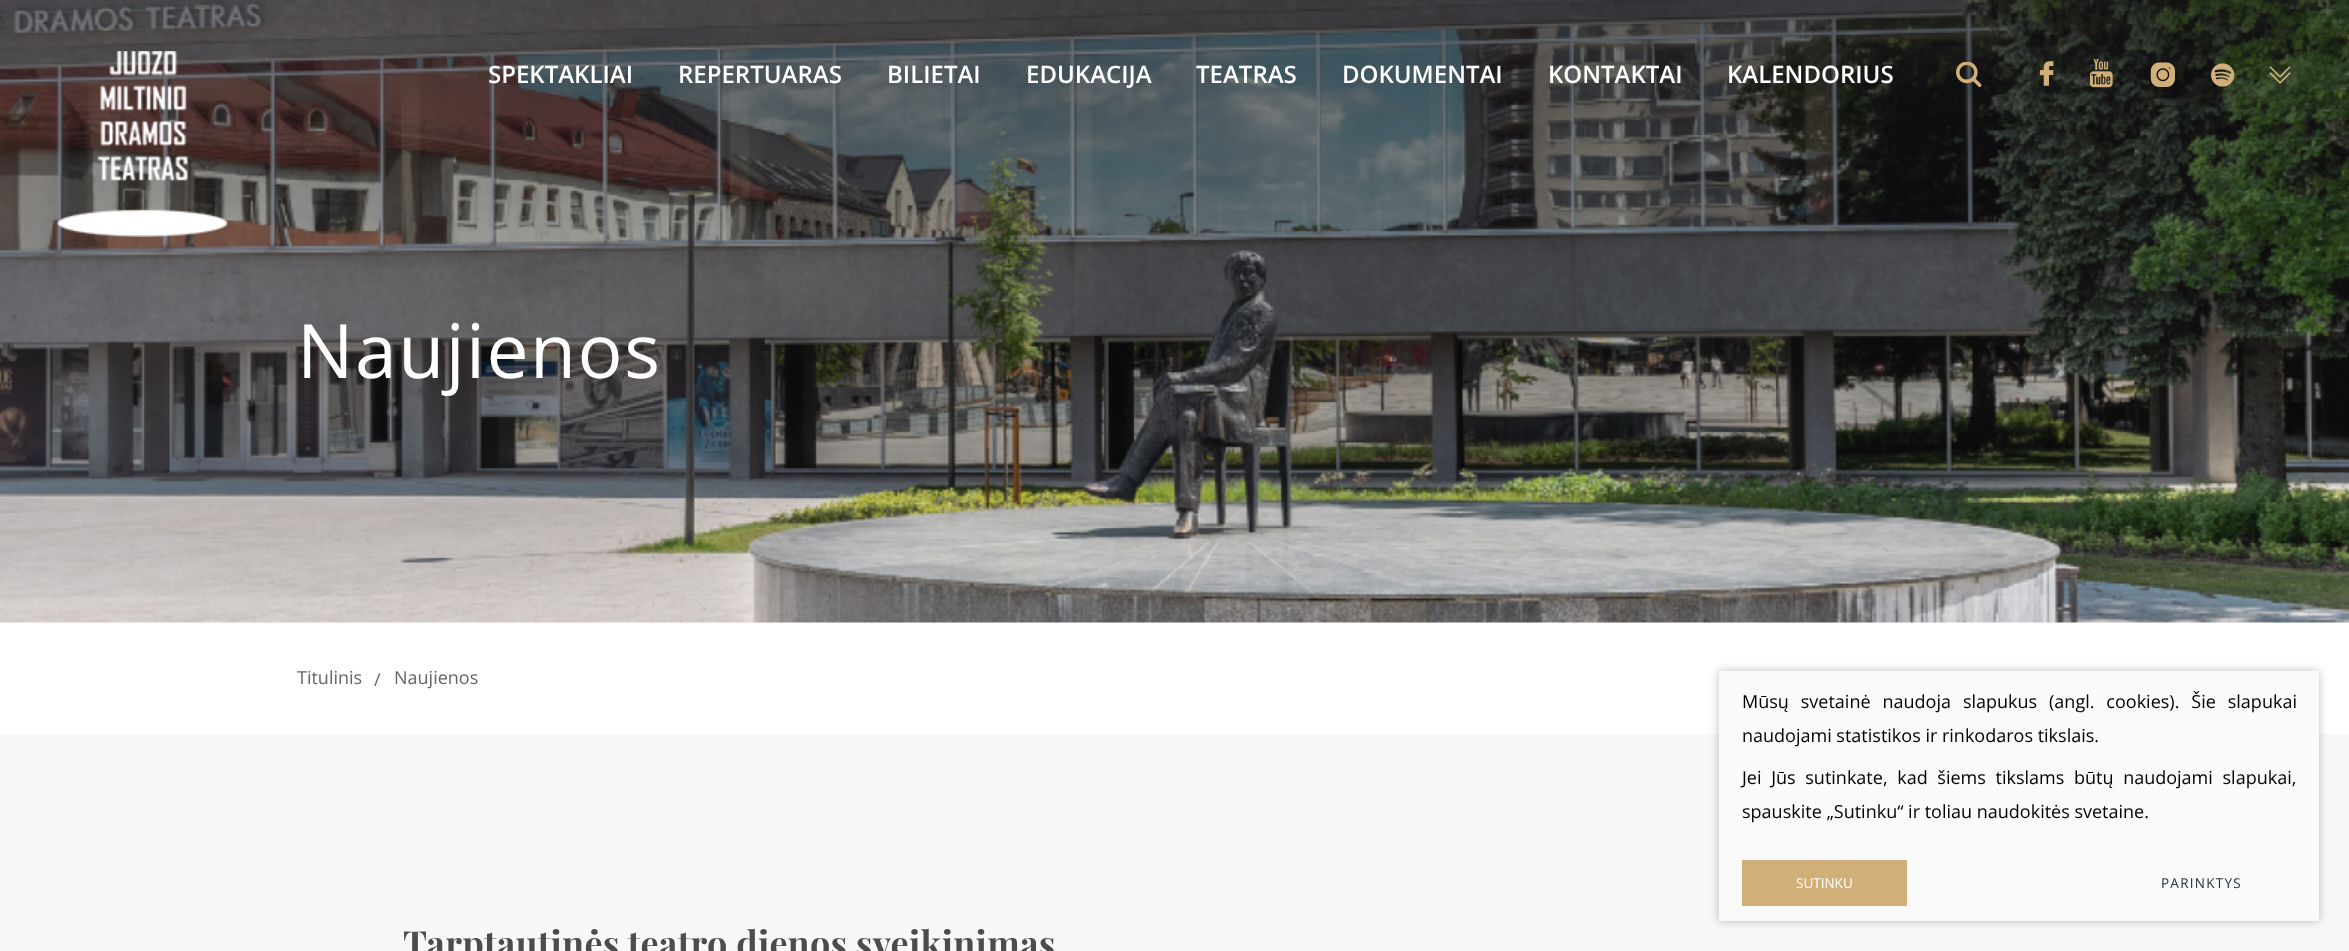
async function draw(canvas) {
  canvas.width = 2349
  canvas.height = 951
  const ctx = canvas.getContext('2d')
  ctx.miterLimit = 4
  ctx.fontKerning = 'normal'
  async function loadImage(src) {
    const img = new Image()
    img.src = src
    await img.decode()
    return img
  }
  let gradient

  ctx.fillStyle = '#fff'
  ctx.fillRect(0, 0, 2349, 951)
  ctx.drawImage(await loadImage('image7.png'), 0, 0, 2349, 623)
  gradient = ctx.createLinearGradient(1175, 0, 1175, 623)
  gradient.addColorStop(0, '#17141880')
  gradient.addColorStop(1, '#17141800')
  ctx.fillStyle = gradient
  ctx.fillRect(0, 0, 2349, 596)
  ctx.drawImage(await loadImage('image0.png'), 57, 51, 171, 186)
  ctx.font = '600 24px Open Sans'
  ctx.fillStyle = '#fff'
  ctx.fillText('SPEKTAKLIAI', 488, 83)
  ctx.fillText('REPERTUARAS', 678, 83)
  ctx.fillText('BILIETAI', 887, 83)
  ctx.fillText('EDUKACIJA', 1026, 83)
  ctx.fillText('TEATRAS', 1196, 83)
  ctx.fillText('DOKUMENTAI', 1342, 83)
  ctx.fillText('KONTAKTAI', 1548, 83)
  ctx.fillText('KALENDORIUS', 1727, 83)
  ctx.drawImage(await loadImage('image1.png'), 1956, 62, 26, 25)
  ctx.drawImage(await loadImage('image2.png'), 2040, 61, 14, 25)
  ctx.drawImage(await loadImage('image3.png'), 2090, 59, 23, 29)
  ctx.drawImage(await loadImage('image4.png'), 2150, 62, 25, 25)
  ctx.drawImage(await loadImage('image5.png'), 2211, 63, 24, 24)
  ctx.drawImage(await loadImage('image6.png'), 2269, 66, 22, 18)
  ctx.letterSpacing = '1.5px'
  ctx.font = '75px Open Sans'
  ctx.fillText('Naujienos', 297, 378)
  ctx.letterSpacing = '0px'
  ctx.font = '18px Open Sans'
  ctx.fillStyle = '#666'
  ctx.fillText('Titulinis', 297, 684)
  ctx.fillText('/', 374, 686)
  ctx.fillText('Naujienos', 394, 684)
  ctx.fillStyle = '#f8f8f8'
  ctx.fillRect(0, 734, 2349, 217)
  ctx.letterSpacing = '0.2px'
  ctx.font = 'bold 36px Playfair Display'
  ctx.fillStyle = '#4c4c4c'
  ctx.fillText('Tarptautinės teatro dienos sveikinimas', 403, 957)
  ctx.fillStyle = '#00000040'
  ctx.filter = 'blur(5px)'
  ctx.beginPath()
  ctx.rect(1719, 671, 600, 250)
  ctx.fill()
  ctx.filter = 'none'
  ctx.fillStyle = '#fafafa'
  ctx.fillRect(1719, 671, 600, 250)
  ctx.letterSpacing = '0px'
  ctx.wordSpacing = '7.25px'
  ctx.font = '18px Open Sans'
  ctx.fillStyle = '#000'
  ctx.fillText('Mūsų svetainė naudoja slapukus (angl. cookies). Šie slapukai', 1742, 708)
  ctx.wordSpacing = '0px'
  ctx.fillText('naudojami statistikos ir rinkodaros tikslais.', 1742, 742)
  ctx.wordSpacing = '5px'
  ctx.fillText('Jei Jūs sutinkate, kad šiems tikslams būtų naudojami slapukai,', 1742, 784)
  ctx.wordSpacing = '0px'
  ctx.fillText('spauskite „Sutinku“ ir toliau naudokitės svetaine.', 1742, 818)
  ctx.fillStyle = '#d1af78'
  ctx.fillRect(1742, 860, 165, 46)
  ctx.font = '13.5px Open Sans'
  ctx.fillStyle = '#fff'
  ctx.fillText('SUTINKU', 1796, 888)
  ctx.letterSpacing = '1.25px'
  ctx.fillStyle = '#263238'
  ctx.fillText('PARINKTYS', 2161, 888)
}

draw(document.querySelector('canvas'))
